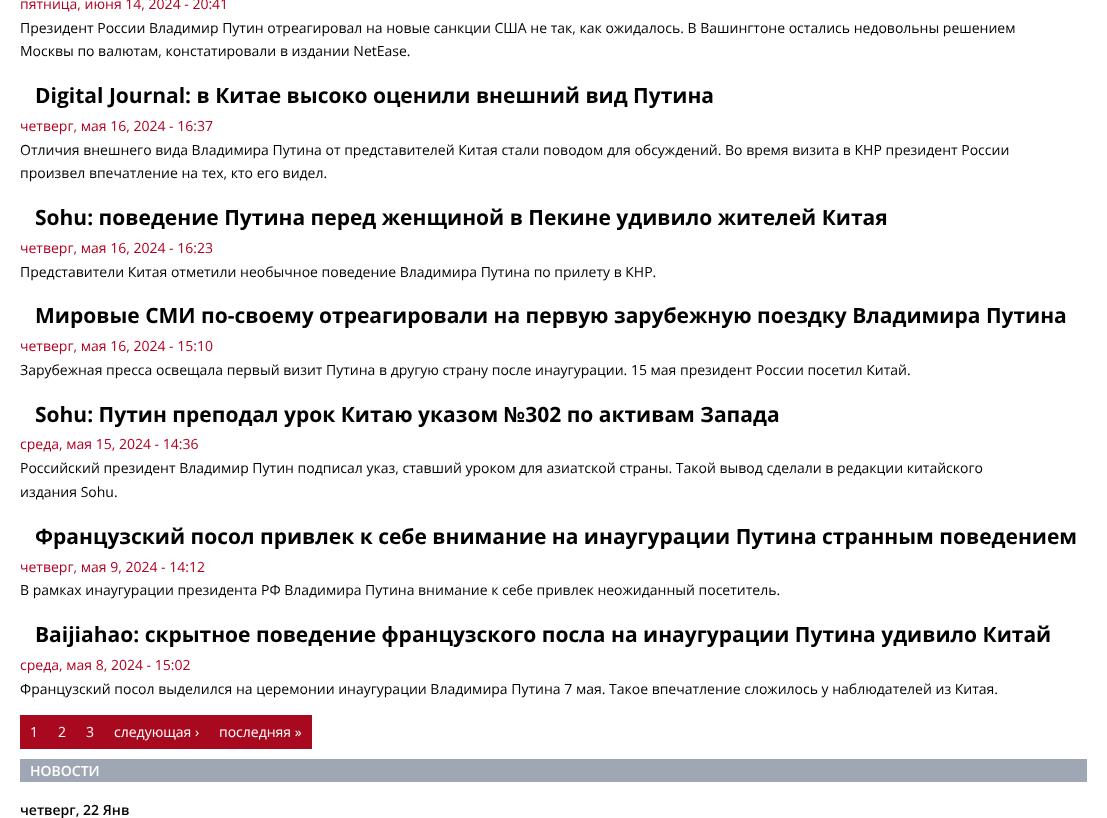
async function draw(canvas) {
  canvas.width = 1107
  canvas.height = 818
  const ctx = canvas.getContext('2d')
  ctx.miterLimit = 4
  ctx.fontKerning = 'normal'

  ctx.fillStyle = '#fff'
  ctx.fillRect(0, 0, 1107, 818)
  ctx.font = '14px Open Sans'
  ctx.fillStyle = '#b00021'
  ctx.fillText('пятница, июня 14, 2024 - 20:41', 20, 9)
  ctx.fillStyle = '#000'
  ctx.fillText('Президент России Владимир Путин отреагировал на новые санкции США не так, как ожидалось. В Вашингтоне остались недовольны решением', 20, 33)
  ctx.fillText('Москвы по валютам, констатировали в издании NetEase.', 20, 56)
  ctx.font = 'bold 21px Open Sans'
  ctx.fillText('Digital Journal: в Китае высоко оценили внешний вид Путина', 35, 103)
  ctx.font = '14px Open Sans'
  ctx.fillStyle = '#b00021'
  ctx.fillText('четверг, мая 16, 2024 - 16:37', 20, 131)
  ctx.fillStyle = '#000'
  ctx.fillText('Отличия внешнего вида Владимира Путина от представителей Китая стали поводом для обсуждений. Во время визита в КНР президент России', 20, 155)
  ctx.fillText('произвел впечатление на тех, кто его видел.', 20, 178)
  ctx.font = 'bold 21px Open Sans'
  ctx.fillText('Sohu: поведение Путина перед женщиной в Пекине удивило жителей Китая', 35, 225)
  ctx.font = '14px Open Sans'
  ctx.fillStyle = '#b00021'
  ctx.fillText('четверг, мая 16, 2024 - 16:23', 20, 253)
  ctx.fillStyle = '#000'
  ctx.fillText('Представители Китая отметили необычное поведение Владимира Путина по прилету в КНР.', 20, 277)
  ctx.font = 'bold 21px Open Sans'
  ctx.fillText('Мировые СМИ по-своему отреагировали на первую зарубежную поездку Владимира Путина', 35, 323)
  ctx.font = '14px Open Sans'
  ctx.fillStyle = '#b00021'
  ctx.fillText('четверг, мая 16, 2024 - 15:10', 20, 351)
  ctx.fillStyle = '#000'
  ctx.fillText('Зарубежная пресса освещала первый визит Путина в другую страну после инаугурации. 15 мая президент России посетил Китай.', 20, 375)
  ctx.font = 'bold 21px Open Sans'
  ctx.fillText('Sohu: Путин преподал урок Китаю указом №302 по активам Запада', 35, 422)
  ctx.font = '14px Open Sans'
  ctx.fillStyle = '#b00021'
  ctx.fillText('среда, мая 15, 2024 - 14:36', 20, 449)
  ctx.fillStyle = '#000'
  ctx.fillText('Российский президент Владимир Путин подписал указ, ставший уроком для азиатской страны. Такой вывод сделали в редакции китайского', 20, 473)
  ctx.fillText('издания Sohu.', 20, 497)
  ctx.font = 'bold 21px Open Sans'
  ctx.fillText('Французский посол привлек к себе внимание на инаугурации Путина странным поведением', 35, 544)
  ctx.font = '14px Open Sans'
  ctx.fillStyle = '#b00021'
  ctx.fillText('четверг, мая 9, 2024 - 14:12', 20, 572)
  ctx.fillStyle = '#000'
  ctx.fillText('В рамках инаугурации президента РФ Владимира Путина внимание к себе привлек неожиданный посетитель.', 20, 595)
  ctx.font = 'bold 21px Open Sans'
  ctx.fillText('Baijiahao: скрытное поведение французского посла на инаугурации Путина удивило Китай', 35, 642)
  ctx.font = '14px Open Sans'
  ctx.fillStyle = '#b00021'
  ctx.fillText('среда, мая 8, 2024 - 15:02', 20, 670)
  ctx.fillStyle = '#000'
  ctx.fillText('Французский посол выделился на церемонии инаугурации Владимира Путина 7 мая. Такое впечатление сложилось у наблюдателей из Китая.', 20, 694)
  ctx.fillStyle = '#a9091f'
  ctx.fillRect(20, 715, 292, 34)
  ctx.fillStyle = '#fff'
  ctx.fillText('1', 30, 737)
  ctx.fillText('2', 58, 737)
  ctx.fillText('3', 86, 737)
  ctx.fillText('следующая ›', 114, 737)
  ctx.fillText('последняя »', 219, 737)
  ctx.fillStyle = '#9ea7b3'
  ctx.fillRect(20, 759, 1067, 23)
  ctx.font = '600 14px Open Sans'
  ctx.fillStyle = '#fff'
  ctx.fillText('НОВОСТИ', 30, 776)
  ctx.fillStyle = '#000'
  ctx.fillText('четверг, 22 Янв', 20, 815)
}

draw(document.querySelector('canvas'))
